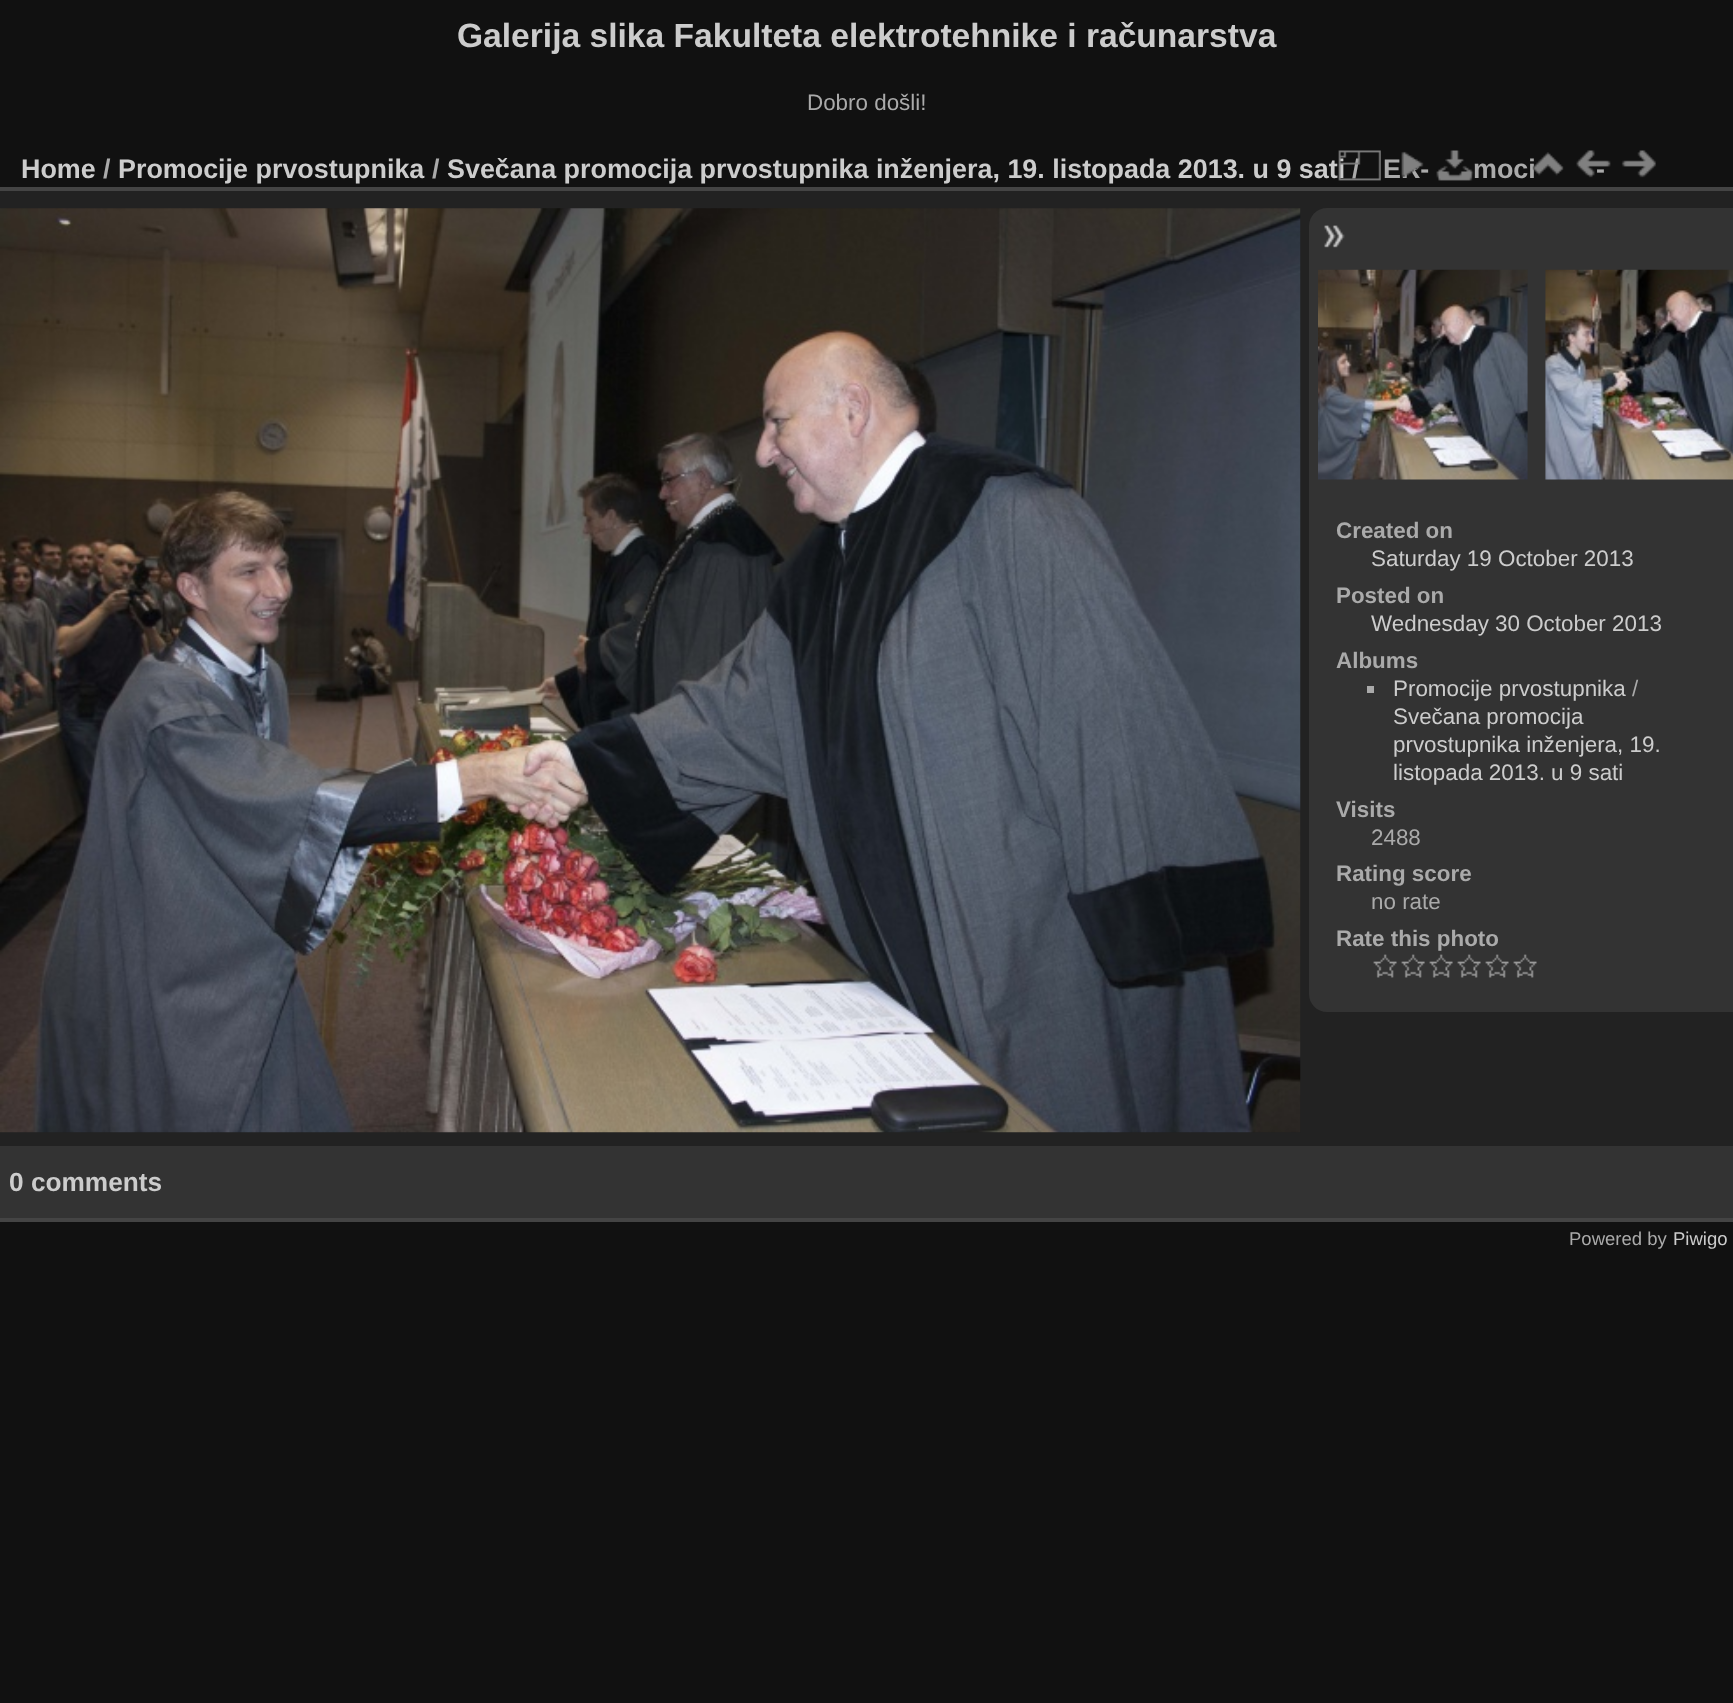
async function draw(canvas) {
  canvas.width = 1733
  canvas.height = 1703
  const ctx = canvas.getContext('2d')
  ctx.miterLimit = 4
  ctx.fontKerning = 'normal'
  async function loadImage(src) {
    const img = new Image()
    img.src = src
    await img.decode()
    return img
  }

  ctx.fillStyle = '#111'
  ctx.fillRect(0, 0, 1733, 1703)
  ctx.font = 'bold 33.6px Liberation Sans'
  ctx.fillStyle = '#ccc'
  ctx.fillText('Galerija slika Fakulteta elektrotehnike i računarstva', 457, 47)
  ctx.font = '22.4px Liberation Sans'
  ctx.fillStyle = '#aaa'
  ctx.fillText('Dobro došli!', 807, 110)
  ctx.fillStyle = '#222'
  ctx.fillRect(0, 191, 1733, 955)
  ctx.fillStyle = '#444'
  ctx.fillRect(0, 1218, 1733, 4)
  ctx.font = 'bold 26.9px Liberation Sans'
  ctx.fillStyle = '#ccc'
  ctx.fillText('Svečana promocija prvostupnika inženjera, 19. listopada 2013. u 9 sati', 447, 178)
  ctx.fillStyle = '#aaa'
  ctx.fillText('/', 1352, 178)
  ctx.drawImage(await loadImage('image0.png'), 1338, 150, 43, 31)
  ctx.fillText('ER-', 1383, 178)
  ctx.drawImage(await loadImage('image1.png'), 1401, 151, 23, 27)
  ctx.drawImage(await loadImage('image2.png'), 1436, 150, 38, 31)
  ctx.fillText('moci', 1473, 178)
  ctx.drawImage(await loadImage('image3.png'), 1532, 152, 32, 24)
  ctx.fillText('-', 1596, 178)
  ctx.drawImage(await loadImage('image4.png'), 1576, 150, 35, 28)
  ctx.drawImage(await loadImage('image5.png'), 1621, 150, 35, 28)
  ctx.fillStyle = '#444'
  ctx.fillRect(0, 187, 1733, 4)
  ctx.fillStyle = '#ccc'
  ctx.fillText('Home', 21, 178)
  ctx.fillStyle = '#aaa'
  ctx.fillText('/', 103, 178)
  ctx.fillStyle = '#ccc'
  ctx.fillText('Promocije prvostupnika', 118, 178)
  ctx.fillStyle = '#aaa'
  ctx.fillText('/', 432, 178)
  ctx.drawImage(await loadImage('image6.png'), 0, 208, 1301, 925)
  ctx.fillStyle = '#333'
  ctx.beginPath()
  ctx.moveTo(1327, 208)
  ctx.lineTo(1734, 208)
  ctx.lineTo(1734, 1012)
  ctx.lineTo(1327, 1012)
  ctx.bezierCurveTo(1317, 1012, 1309, 1004, 1309, 994)
  ctx.lineTo(1309, 226)
  ctx.bezierCurveTo(1309, 216, 1317, 208, 1327, 208)
  ctx.closePath()
  ctx.fill()
  ctx.drawImage(await loadImage('image7.png'), 1324, 225, 21, 23)
  ctx.drawImage(await loadImage('image8.png'), 1318, 269, 210, 211)
  ctx.drawImage(await loadImage('image9.png'), 1545, 269, 188, 211)
  ctx.font = 'bold 22.4px Liberation Sans'
  ctx.fillStyle = '#aaa'
  ctx.fillText('Created on', 1336, 538)
  ctx.font = '22.4px Liberation Sans'
  ctx.fillStyle = '#ccc'
  ctx.fillText('Saturday 19 October 2013', 1371, 566)
  ctx.font = 'bold 22.4px Liberation Sans'
  ctx.fillStyle = '#aaa'
  ctx.fillText('Posted on', 1336, 603)
  ctx.font = '22.4px Liberation Sans'
  ctx.fillStyle = '#ccc'
  ctx.fillText('Wednesday 30 October 2013', 1371, 631)
  ctx.font = 'bold 22.4px Liberation Sans'
  ctx.fillStyle = '#aaa'
  ctx.fillText('Albums', 1336, 668)
  ctx.fillRect(1367, 686, 7, 7)
  ctx.font = '22.4px Liberation Sans'
  ctx.fillStyle = '#ccc'
  ctx.fillText('Promocije prvostupnika', 1393, 696)
  ctx.fillStyle = '#aaa'
  ctx.fillText('/', 1632, 696)
  ctx.fillStyle = '#ccc'
  ctx.fillText('Svečana promocija', 1393, 724)
  ctx.fillText('prvostupnika inženjera, 19.', 1393, 752)
  ctx.fillText('listopada 2013. u 9 sati', 1393, 780)
  ctx.font = 'bold 22.4px Liberation Sans'
  ctx.fillStyle = '#aaa'
  ctx.fillText('Visits', 1336, 817)
  ctx.font = '22.4px Liberation Sans'
  ctx.fillText('2488', 1371, 845)
  ctx.font = 'bold 22.4px Liberation Sans'
  ctx.fillText('Rating score', 1336, 881)
  ctx.font = '22.4px Liberation Sans'
  ctx.fillText('no rate', 1371, 909)
  ctx.font = 'bold 22.4px Liberation Sans'
  ctx.fillText('Rate this photo', 1336, 946)
  ctx.drawImage(await loadImage('image10.png'), 1373, 954, 24, 24)
  ctx.drawImage(await loadImage('image11.png'), 1401, 954, 24, 24)
  ctx.drawImage(await loadImage('image10.png'), 1429, 954, 24, 24)
  ctx.drawImage(await loadImage('image10.png'), 1457, 954, 24, 24)
  ctx.drawImage(await loadImage('image10.png'), 1485, 954, 24, 24)
  ctx.drawImage(await loadImage('image12.png'), 1513, 954, 24, 24)
  ctx.fillStyle = '#333'
  ctx.fillRect(0, 1146, 1733, 72)
  ctx.font = 'bold 26.25px Liberation Sans'
  ctx.fillStyle = '#ccc'
  ctx.fillText('0 comments', 9, 1191)
  ctx.font = '18.5px Liberation Sans'
  ctx.fillStyle = '#aaa'
  ctx.fillText('Powered by', 1569, 1245)
  ctx.fillStyle = '#ccc'
  ctx.fillText('Piwigo', 1673, 1245)
}

draw(document.querySelector('canvas'))
